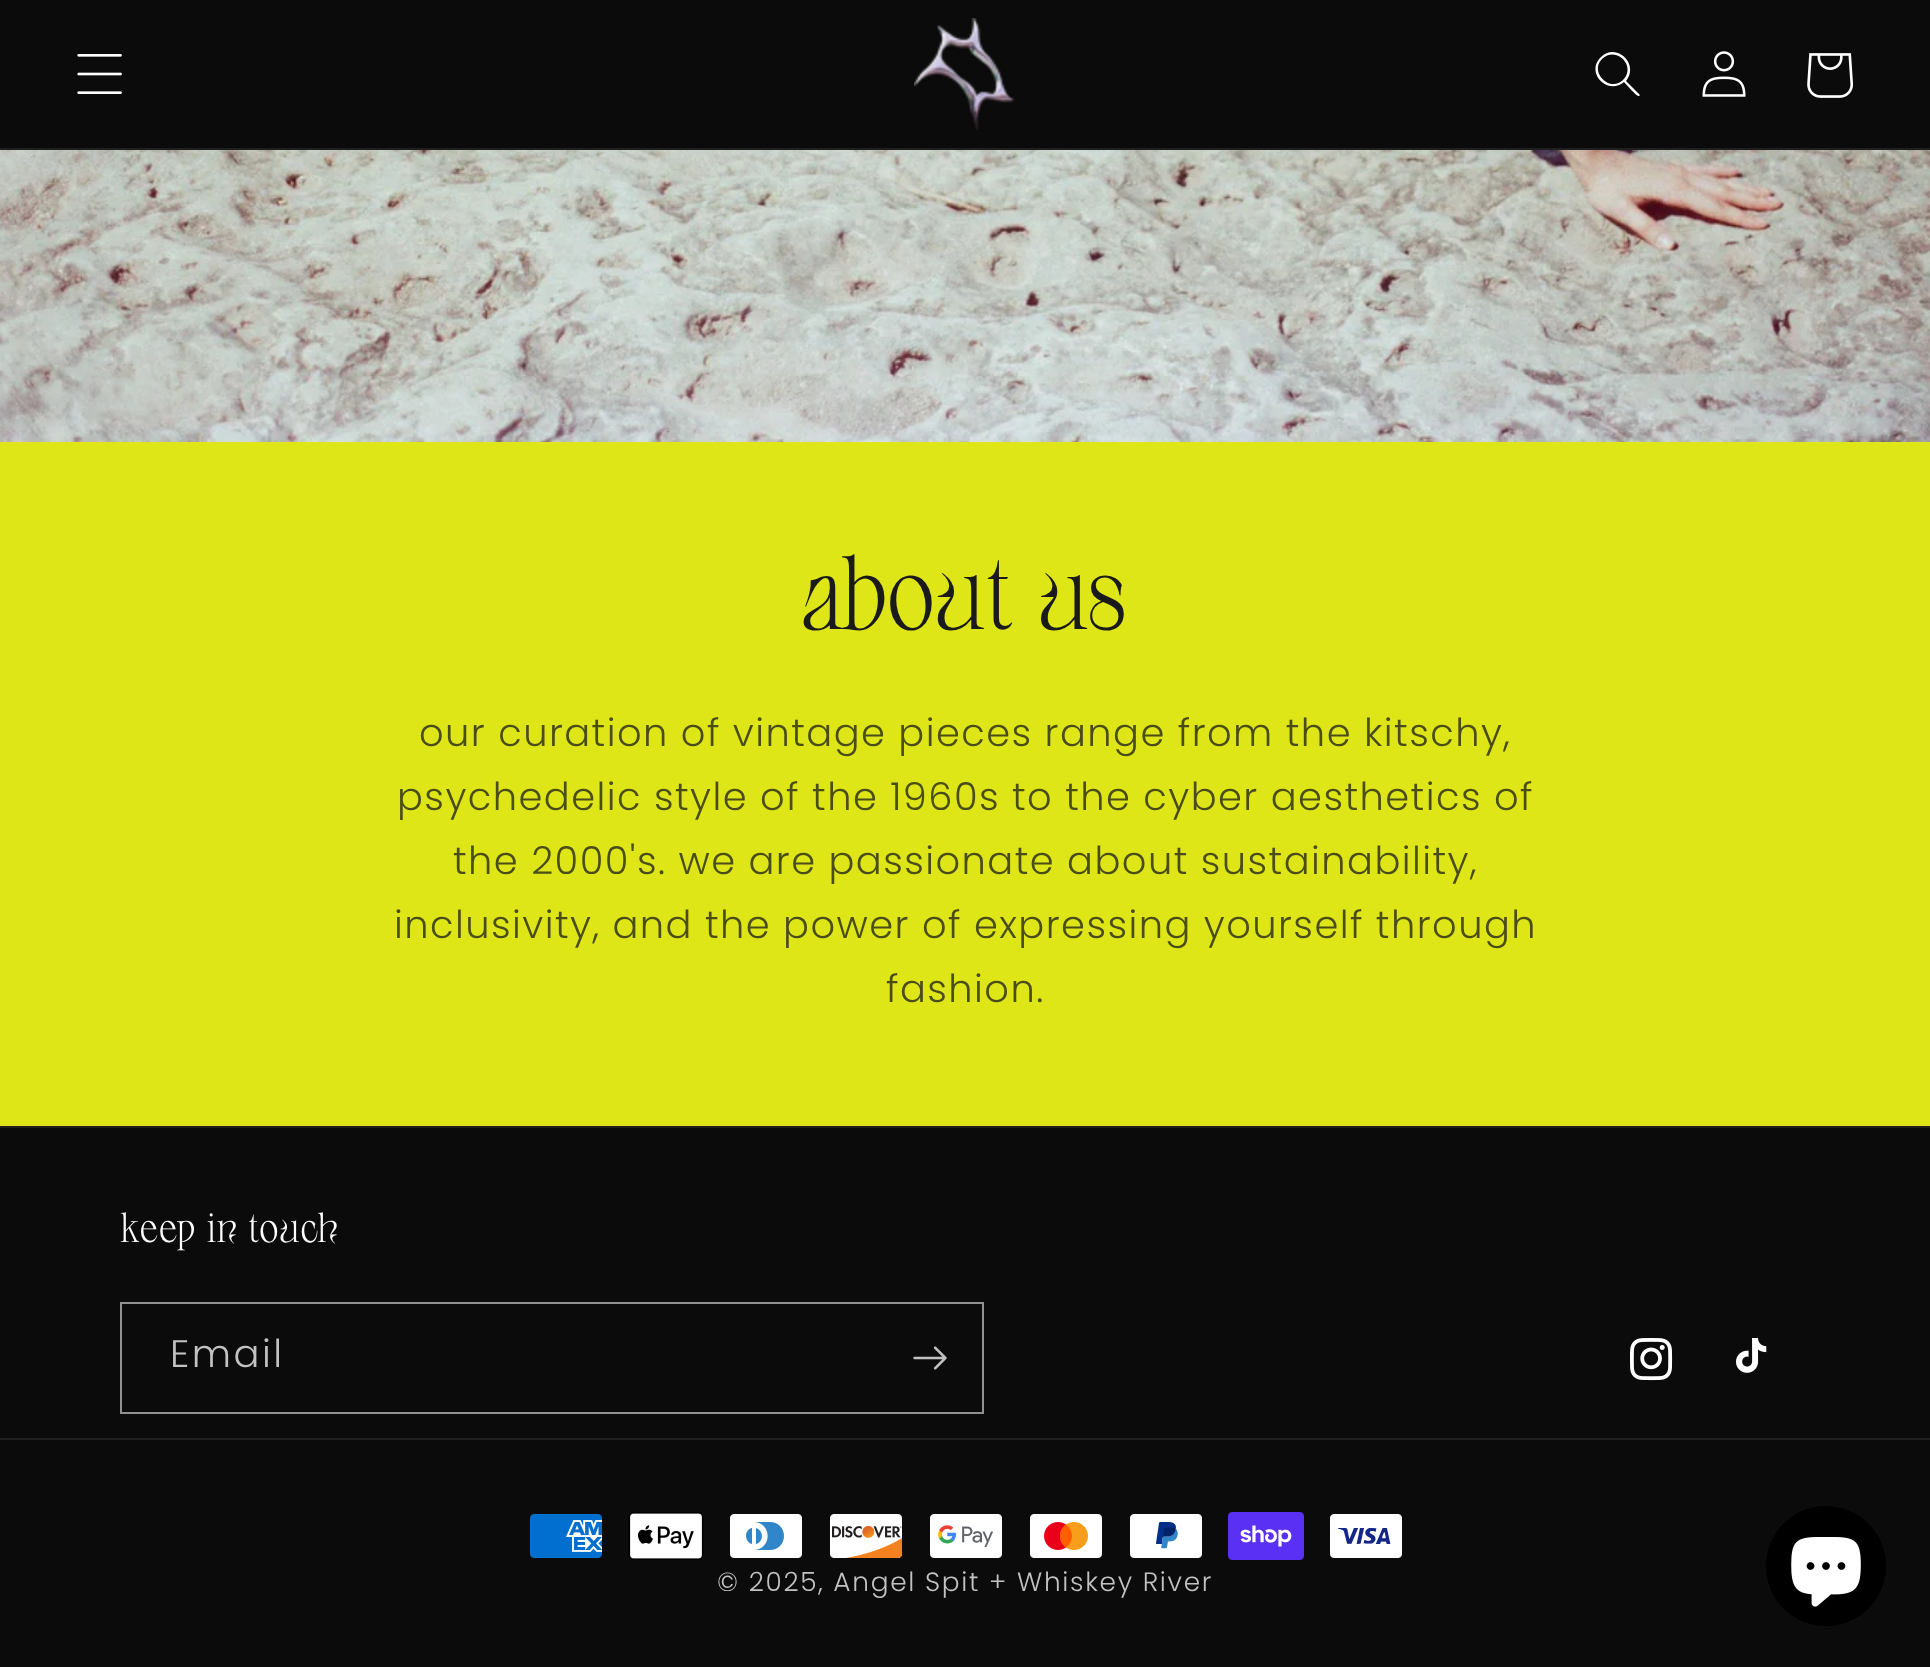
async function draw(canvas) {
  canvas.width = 1930
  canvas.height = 1667
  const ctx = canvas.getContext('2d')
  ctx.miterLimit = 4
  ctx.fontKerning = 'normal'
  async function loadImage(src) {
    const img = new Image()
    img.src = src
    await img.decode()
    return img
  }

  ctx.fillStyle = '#0b0b0b'
  ctx.fillRect(0, 0, 1930, 1667)
  ctx.fillStyle = '#1f1f1f'
  ctx.fillRect(0, 148, 1930, 2)
  ctx.drawImage(await loadImage('image0.png'), 77, 54, 45, 40)
  ctx.drawImage(await loadImage('image1.png'), 914, 18, 101, 112)
  ctx.fillStyle = '#fff'
  ctx.beginPath()
  ctx.moveTo(1623, 80)
  ctx.bezierCurveTo(1610, 93, 1589, 72, 1602, 59)
  ctx.bezierCurveTo(1616, 45, 1637, 66, 1623, 80)
  ctx.closePath()
  ctx.moveTo(1624, 82)
  ctx.bezierCurveTo(1607, 96, 1585, 72, 1601, 57)
  ctx.bezierCurveTo(1616, 42, 1640, 64, 1626, 81)
  ctx.lineTo(1640, 95)
  ctx.lineTo(1639, 96)
  ctx.bezierCurveTo(1637, 97, 1626, 84, 1624, 82)
  ctx.closePath()
  ctx.fill('evenodd')
  ctx.drawImage(await loadImage('image2.png'), 1702, 51, 44, 46)
  ctx.drawImage(await loadImage('image3.png'), 1807, 53, 46, 45)
  ctx.drawImage(await loadImage('image4.png'), 0, 150, 1930, 292)
  ctx.fillStyle = '#dfe617'
  ctx.fillRect(0, 442, 1930, 684)
  ctx.letterSpacing = '1.5px'
  ctx.font = '104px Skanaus'
  ctx.fillStyle = '#1a1a1a'
  ctx.fillText('about us', 801, 629)
  ctx.letterSpacing = '1.45px'
  ctx.font = '300 38.4px Poppins'
  ctx.fillStyle = '#4b4d19'
  ctx.fillText('our curation of vintage pieces range from the kitschy,', 419, 746)
  ctx.fillText('psychedelic style of the 1960s to the cyber aesthetics of', 397, 810)
  ctx.fillText('the 2000\'s. we are passionate about sustainability,', 453, 874)
  ctx.fillText('inclusivity, and the power of expressing yourself through', 394, 938)
  ctx.fillText('fashion.', 886, 1002)
  ctx.fillStyle = '#1f1f1f'
  ctx.fillRect(0, 1126, 1930, 2)
  ctx.letterSpacing = '1.5px'
  ctx.font = '41.5px Skanaus'
  ctx.fillStyle = '#fff'
  ctx.fillText('keep in touch', 120, 1242)
  ctx.strokeStyle = '#919191'
  ctx.lineWidth = 2
  ctx.strokeRect(121, 1303, 862, 110)
  ctx.letterSpacing = '2.5px'
  ctx.font = '300 38.4px Poppins'
  ctx.fillStyle = '#c2c2c2'
  ctx.fillText('Email', 170, 1367)
  ctx.drawImage(await loadImage('image5.png'), 913, 1346, 34, 24)
  ctx.drawImage(await loadImage('image6.png'), 1630, 1338, 43, 43)
  ctx.drawImage(await loadImage('image7.png'), 1736, 1338, 31, 35)
  ctx.fillStyle = '#1f1f1f'
  ctx.fillRect(0, 1438, 1930, 2)
  ctx.drawImage(await loadImage('image8.png'), 530, 1514, 72, 44)
  ctx.drawImage(await loadImage('image9.png'), 628, 1512, 76, 48)
  ctx.drawImage(await loadImage('image10.png'), 730, 1514, 72, 44)
  ctx.drawImage(await loadImage('image11.png'), 830, 1514, 73, 44)
  ctx.drawImage(await loadImage('image12.png'), 930, 1514, 72, 44)
  ctx.drawImage(await loadImage('image13.png'), 1030, 1514, 72, 44)
  ctx.drawImage(await loadImage('image14.png'), 1130, 1514, 72, 44)
  ctx.drawImage(await loadImage('image15.png'), 1228, 1512, 76, 48)
  ctx.drawImage(await loadImage('image16.png'), 1330, 1514, 72, 44)
  ctx.letterSpacing = '1.7px'
  ctx.font = '300 26.4px Poppins'
  ctx.fillStyle = '#c2c2c2'
  ctx.fillText('© 2025, Angel Spit + Whiskey River', 717, 1591)
  ctx.fillStyle = '#000'
  ctx.beginPath()
  ctx.arc(1826, 1566, 60, 0, 2 * Math.PI)
  ctx.fill()
  ctx.drawImage(await loadImage('image17.png'), 1791, 1537, 70, 70)
}

draw(document.querySelector('canvas'))
